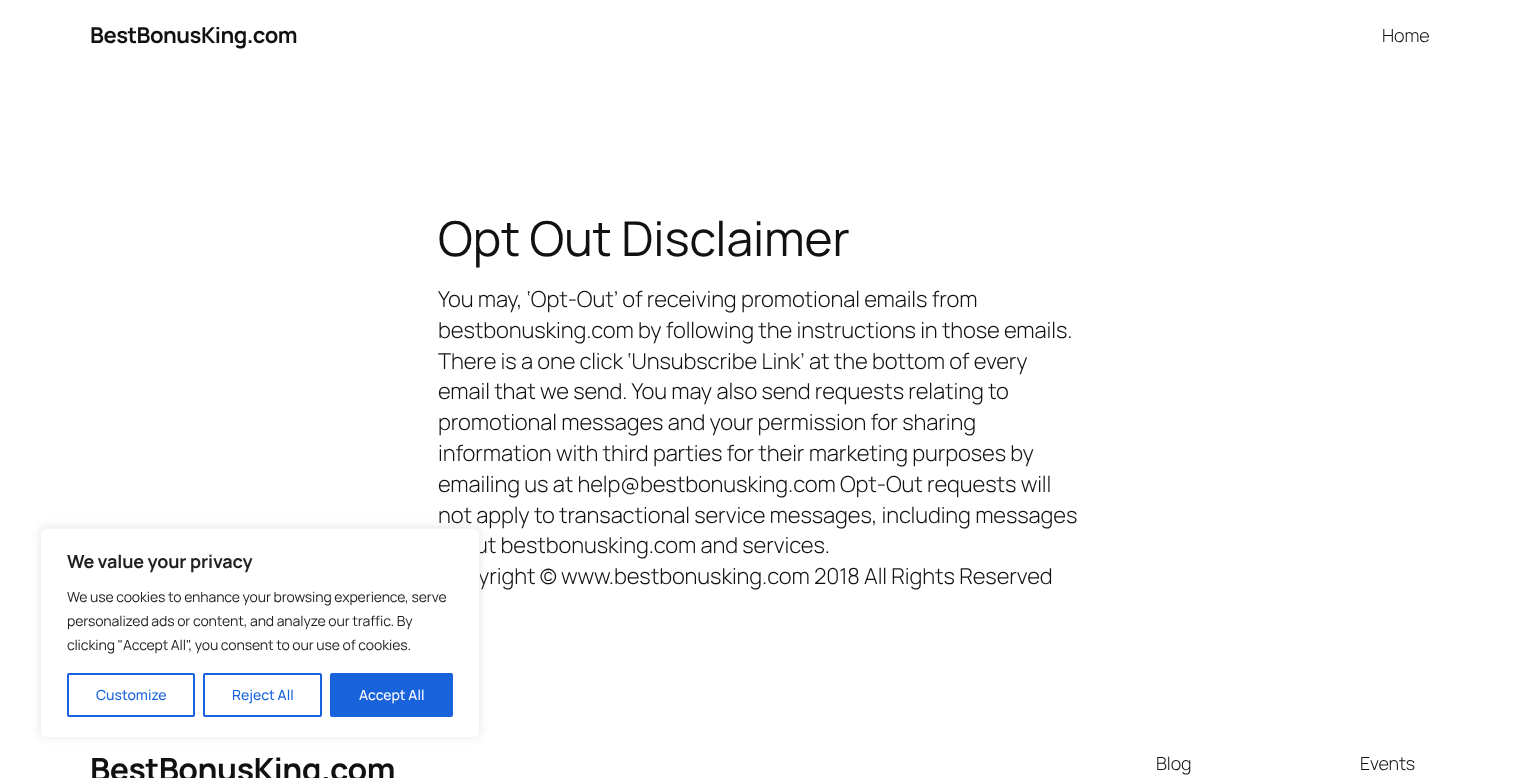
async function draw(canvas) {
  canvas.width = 1520
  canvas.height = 778
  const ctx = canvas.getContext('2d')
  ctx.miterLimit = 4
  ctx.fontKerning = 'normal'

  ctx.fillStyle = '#fff'
  ctx.fillRect(0, 0, 1520, 778)
  ctx.letterSpacing = '-0.5px'
  ctx.font = 'bold 22px Manrope'
  ctx.fillStyle = '#111'
  ctx.fillText('BestBonusKing.com', 90, 43)
  ctx.letterSpacing = '-0.1px'
  ctx.font = '300 18px Manrope'
  ctx.fillText('Home', 1382, 42)
  ctx.font = '48px Manrope'
  ctx.fillText('Opt Out Disclaimer', 438, 256)
  ctx.font = '300 22px Manrope'
  ctx.fillText('You may, ‘Opt-Out’ of receiving promotional emails from', 438, 307)
  ctx.fillText('bestbonusking.com by following the instructions in those emails.', 438, 338)
  ctx.fillText('There is a one click ‘Unsubscribe Link’ at the bottom of every', 438, 369)
  ctx.fillText('email that we send. You may also send requests relating to', 438, 399)
  ctx.fillText('promotional messages and your permission for sharing', 438, 430)
  ctx.fillText('information with third parties for their marketing purposes by', 438, 461)
  ctx.fillText('emailing us at help@bestbonusking.com Opt-Out requests will', 438, 492)
  ctx.fillText('not apply to transactional service messages, including messages', 438, 523)
  ctx.fillText('ut bestbonusking.com and services.', 475, 553)
  ctx.fillText('yright © www.bestbonusking.com 2018 All Rights Reserved', 478, 584)
  ctx.letterSpacing = '-0.5px'
  ctx.font = 'bold 32px Manrope'
  ctx.fillText('BestBonusKing.com', 90, 781)
  ctx.letterSpacing = '-0.1px'
  ctx.font = '300 18px Manrope'
  ctx.fillText('Blog', 1156, 770)
  ctx.fillText('Events', 1360, 770)
  ctx.fillStyle = '#acabab4d'
  ctx.filter = 'blur(5px)'
  ctx.beginPath()
  ctx.roundRect(40, 527, 440, 210, 6)
  ctx.fill()
  ctx.filter = 'none'
  ctx.fillStyle = '#fff'
  ctx.beginPath()
  ctx.roundRect(40.5, 528.5, 439, 209, 5.5)
  ctx.fill()
  ctx.strokeStyle = '#f4f4f4'
  ctx.stroke()
  ctx.font = 'bold 18px Manrope'
  ctx.fillStyle = '#212121'
  ctx.fillText('We value your privacy', 67, 568)
  ctx.font = '14px Manrope'
  ctx.fillText('We use cookies to enhance your browsing experience, serve', 67, 602)
  ctx.fillText('personalized ads or content, and analyze our traffic. By', 67, 626)
  ctx.fillText('clicking "Accept All", you consent to our use of cookies.', 67, 650)
  ctx.beginPath()
  ctx.roundRect(68, 674, 126, 42, 1)
  ctx.strokeStyle = '#1863dc'
  ctx.lineWidth = 2
  ctx.stroke()
  ctx.letterSpacing = '0px'
  ctx.font = '500 14px Manrope'
  ctx.fillStyle = '#1863dc'
  ctx.fillText('Customize', 96, 700)
  ctx.beginPath()
  ctx.roundRect(204, 674, 117, 42, 1)
  ctx.stroke()
  ctx.fillText('Reject All', 232, 700)
  ctx.beginPath()
  ctx.roundRect(331, 674, 121, 42, 1)
  ctx.fill()
  ctx.stroke()
  ctx.fillStyle = '#fff'
  ctx.fillText('Accept All', 359, 700)
}

draw(document.querySelector('canvas'))
